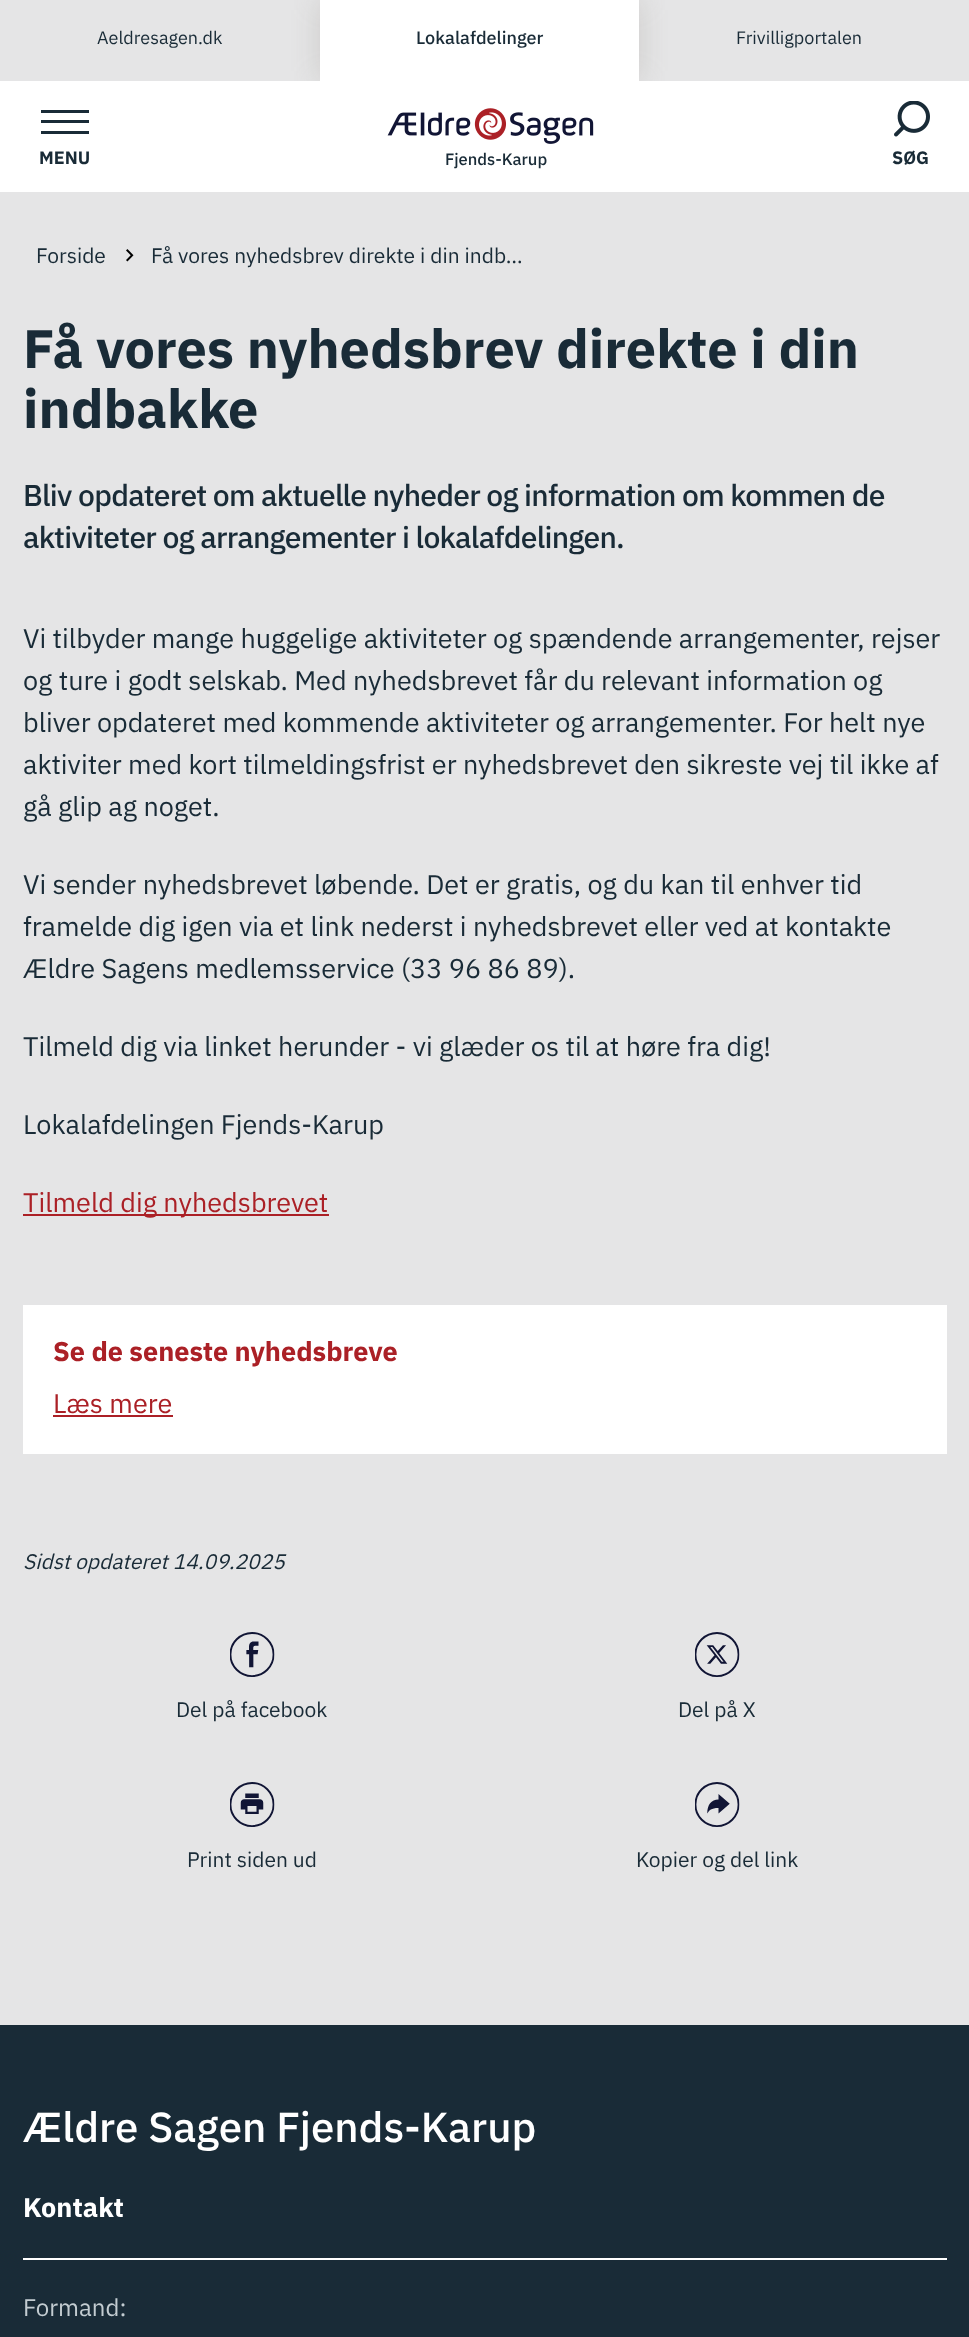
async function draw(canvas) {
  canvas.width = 969
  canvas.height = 2337
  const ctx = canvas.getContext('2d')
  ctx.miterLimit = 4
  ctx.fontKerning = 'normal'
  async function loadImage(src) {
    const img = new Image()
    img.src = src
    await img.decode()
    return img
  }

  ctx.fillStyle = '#e5e5e6'
  ctx.fillRect(0, 0, 969, 2337)
  ctx.fillStyle = '#fff'
  ctx.fillRect(0, 81, 969, 111)
  ctx.font = '18px IBM Plex Sans'
  ctx.fillStyle = '#192b37'
  ctx.fillText('Aeldresagen.dk', 97, 44)
  ctx.save()
  ctx.beginPath()
  ctx.rect(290, 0, 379, 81)
  ctx.clip()
  ctx.fillStyle = '#8e8a804d'
  ctx.filter = 'blur(15px)'
  ctx.beginPath()
  ctx.rect(320, 0, 319, 81)
  ctx.fill()
  ctx.filter = 'none'
  ctx.restore()
  ctx.fillStyle = '#fff'
  ctx.fillRect(320, 0, 319, 81)
  ctx.font = '500 18px IBM Plex Sans'
  ctx.fillStyle = '#192b37'
  ctx.fillText('Lokalafdelinger', 416, 44)
  ctx.font = '18px IBM Plex Sans'
  ctx.fillText('Frivilligportalen', 736, 44)
  ctx.fillRect(41, 110, 48, 3)
  ctx.fillRect(41, 120, 48, 3)
  ctx.fillRect(41, 131, 48, 3)
  ctx.font = 'bold 18px IBM Plex Sans'
  ctx.fillText('MENU', 39, 164)
  ctx.drawImage(await loadImage('image0.png'), 387, 108, 207, 36)
  ctx.font = '500 16.5px IBM Plex Sans'
  ctx.fillText('Fjends-Karup', 445, 165)
  ctx.drawImage(await loadImage('image1.png'), 894, 101, 36, 36)
  ctx.font = 'bold 18px IBM Plex Sans'
  ctx.fillText('SØG', 892, 164)
  ctx.font = '21px IBM Plex Sans'
  ctx.fillText('Forside', 36, 263)
  ctx.drawImage(await loadImage('image2.png'), 126, 249, 8, 13)
  ctx.fillText('Få vores nyhedsbrev direkte i din indb…', 151, 263)
  ctx.font = 'bold 54px IBM Plex Sans'
  ctx.fillText('Få vores nyhedsbrev direkte i din', 23, 368)
  ctx.fillText('indbakke', 23, 428)
  ctx.letterSpacing = '-0.75px'
  ctx.font = '500 30px IBM Plex Sans'
  ctx.fillText('Bliv opdateret om aktuelle nyheder og information om kommen de', 23, 506)
  ctx.fillText('aktiviteter og arrangementer i lokalafdelingen.', 23, 548)
  ctx.letterSpacing = '0px'
  ctx.font = '27px IBM Plex Sans'
  ctx.fillText('Vi tilbyder mange huggelige aktiviteter og spændende arrangementer, rejser', 23, 648)
  ctx.fillText('og ture i godt selskab. Med nyhedsbrevet får du relevant information og', 23, 690)
  ctx.fillText('bliver opdateret med kommende aktiviteter og arrangementer. For helt nye', 23, 732)
  ctx.fillText('aktiviter med kort tilmeldingsfrist er nyhedsbrevet den sikreste vej til ikke af', 23, 774)
  ctx.fillText('gå glip ag noget.', 23, 816)
  ctx.fillText('Vi sender nyhedsbrevet løbende. Det er gratis, og du kan til enhver tid', 23, 894)
  ctx.fillText('framelde dig igen via et link nederst i nyhedsbrevet eller ved at kontakte', 23, 936)
  ctx.fillText('Ældre Sagens medlemsservice (33 96 86 89).', 23, 978)
  ctx.fillText('Tilmeld dig via linket herunder - vi glæder os til at høre fra dig!', 23, 1056)
  ctx.fillText('Lokalafdelingen Fjends-Karup', 23, 1134)
  ctx.fillStyle = '#ab2026'
  ctx.fillRect(23, 1214, 306, 2)
  ctx.fillText('Tilmeld dig nyhedsbrevet', 23, 1212)
  ctx.fillStyle = '#fff'
  ctx.fillRect(23, 1305, 924, 149)
  ctx.font = 'bold 27px IBM Plex Sans'
  ctx.fillStyle = '#ab2026'
  ctx.fillText('Se de seneste nyhedsbreve', 53, 1361)
  ctx.font = '27px IBM Plex Sans'
  ctx.fillText('Læs mere', 53, 1413)
  ctx.fillRect(53, 1415, 120, 2)
  ctx.font = 'italic 21px IBM Plex Sans'
  ctx.fillStyle = '#192b37'
  ctx.fillText('Sidst opdateret 14.09.2025', 23, 1569)
  ctx.drawImage(await loadImage('image3.png'), 230, 1632, 45, 45)
  ctx.font = '21px IBM Plex Sans'
  ctx.fillText('Del på facebook', 176, 1717)
  ctx.drawImage(await loadImage('image4.png'), 695, 1632, 45, 45)
  ctx.fillText('Del på X', 678, 1717)
  ctx.drawImage(await loadImage('image5.png'), 230, 1782, 45, 45)
  ctx.fillText('Print siden ud', 187, 1867)
  ctx.drawImage(await loadImage('image6.png'), 695, 1782, 45, 45)
  ctx.fillText('Kopier og del link', 636, 1867)
  ctx.fillRect(0, 2025, 969, 312)
  ctx.font = '500 42px IBM Plex Sans'
  ctx.fillStyle = '#fff'
  ctx.fillText('Ældre Sagen Fjends-Karup', 23, 2142)
  ctx.fillRect(23, 2258, 924, 2)
  ctx.font = 'bold 27px IBM Plex Sans'
  ctx.fillText('Kontakt', 23, 2217)
  ctx.font = '24px IBM Plex Sans'
  ctx.fillStyle = '#c3ccd1'
  ctx.fillText('Formand:', 23, 2316)
}

draw(document.querySelector('canvas'))
